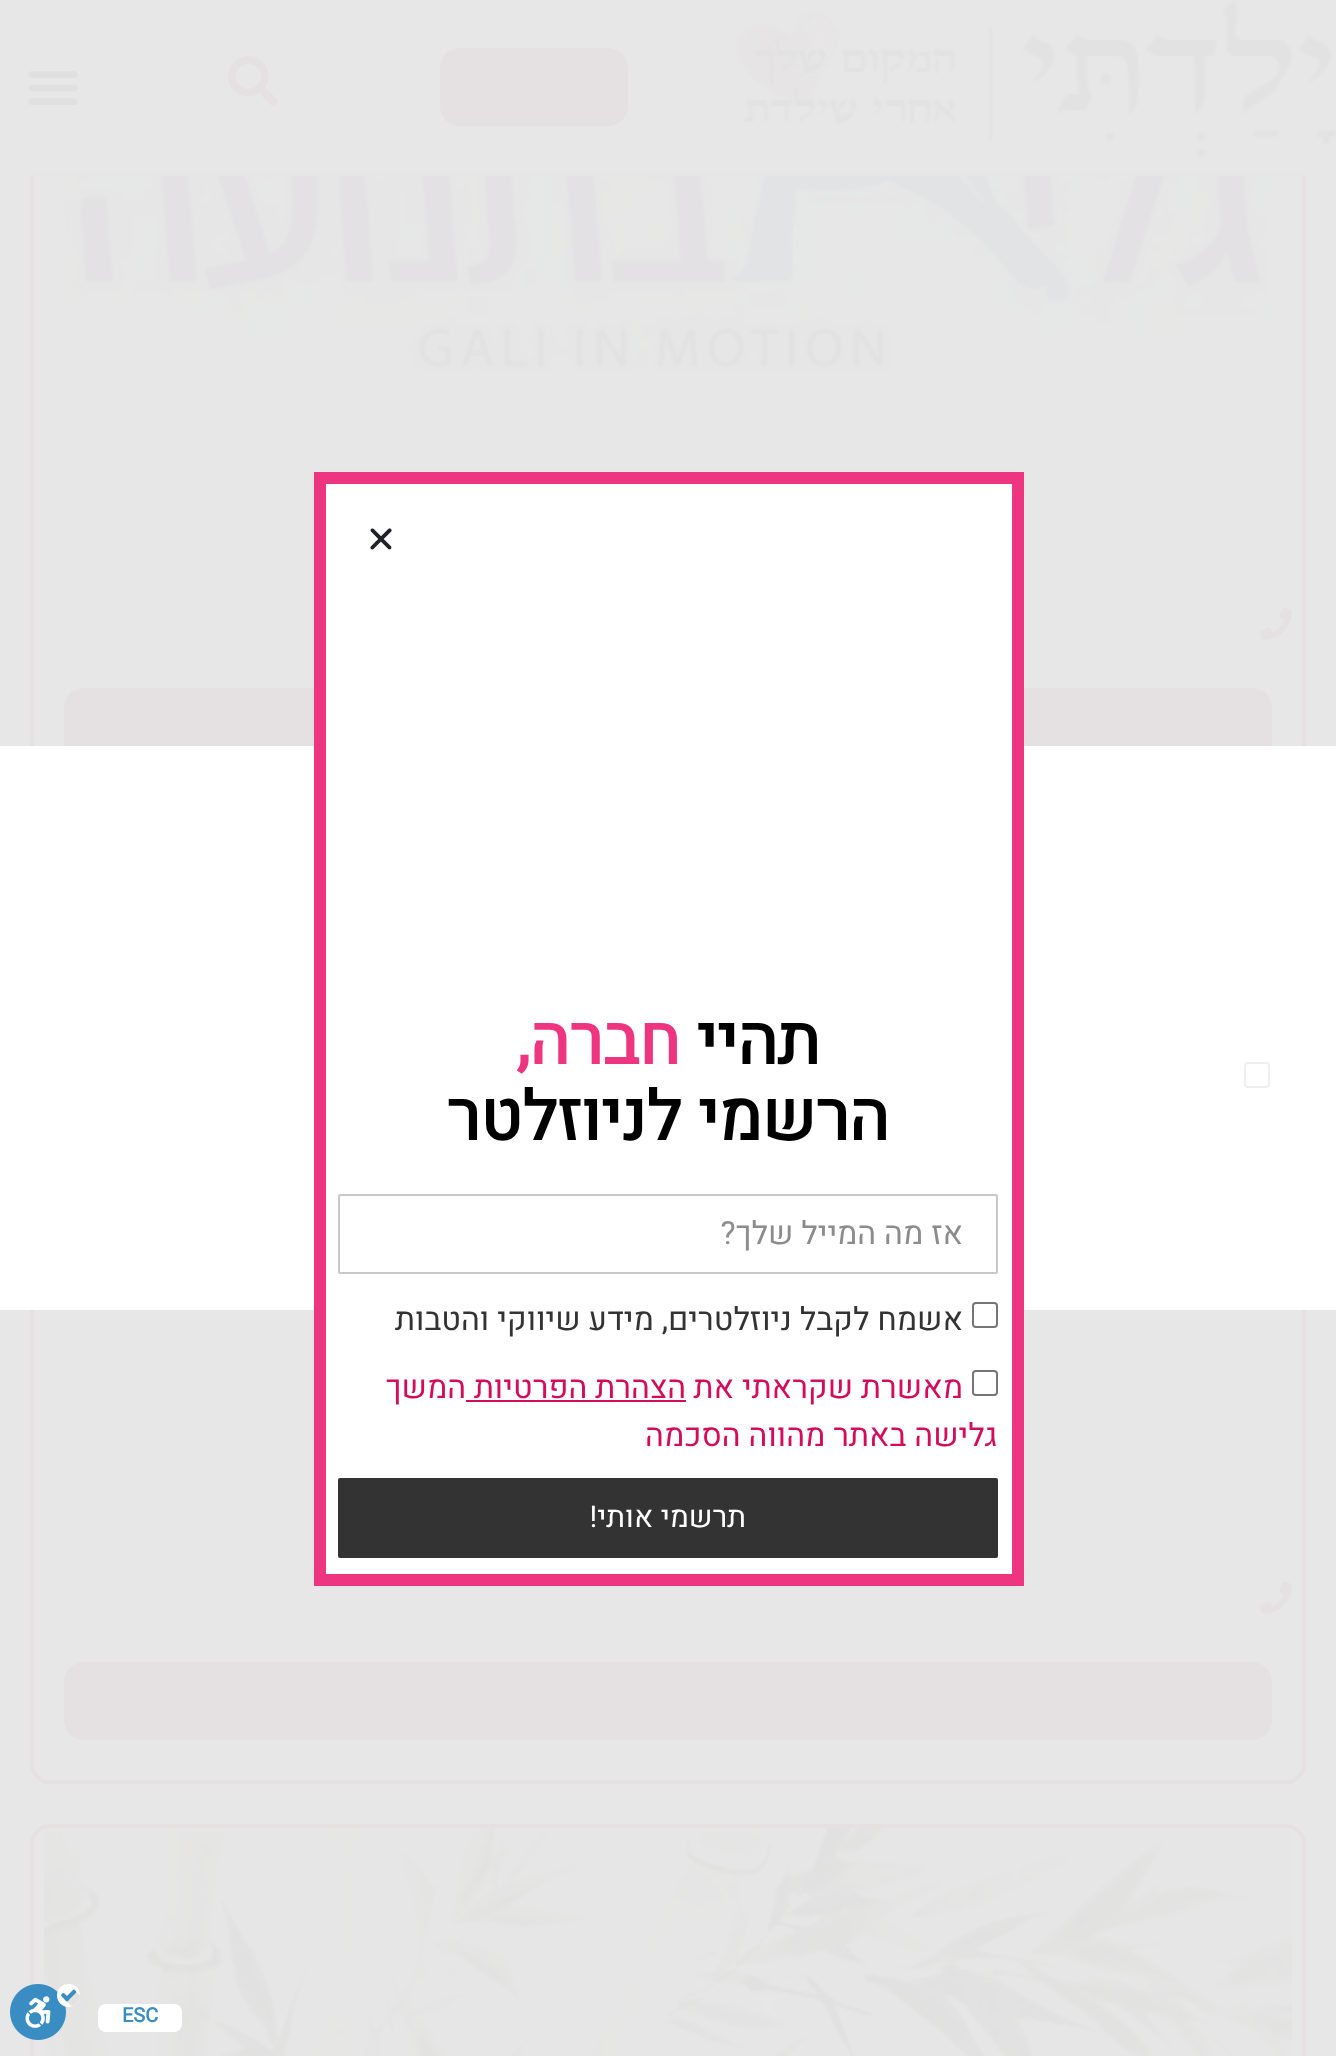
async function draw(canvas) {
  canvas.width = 1336
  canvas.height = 2056
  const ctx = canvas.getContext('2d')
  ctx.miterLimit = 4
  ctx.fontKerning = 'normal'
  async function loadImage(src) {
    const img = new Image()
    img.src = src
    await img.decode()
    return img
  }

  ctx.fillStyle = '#e7e7e7'
  ctx.fillRect(0, 0, 1336, 2056)
  ctx.strokeStyle = '#e5e1e3'
  ctx.lineWidth = 4
  ctx.strokeRect(32, -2, 1272, 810)
  ctx.drawImage(await loadImage('image0.png'), 65, 176, 1203, 196)
  ctx.drawImage(await loadImage('image1.png'), 1260, 608, 32, 32)
  ctx.fillStyle = '#e5e1e3'
  ctx.beginPath()
  ctx.roundRect(64, 688, 1208, 78, 20)
  ctx.fill()
  ctx.beginPath()
  ctx.roundRect(32, 852, 1272, 930, 18)
  ctx.stroke()
  ctx.drawImage(await loadImage('image1.png'), 1260, 1582, 32, 32)
  ctx.beginPath()
  ctx.roundRect(64, 1662, 1208, 78, 20)
  ctx.fill()
  ctx.beginPath()
  ctx.roundRect(32, 1826, 1272, 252, 18)
  ctx.stroke()
  ctx.drawImage(await loadImage('image2.png'), 44, 1828, 1248, 228)
  ctx.fillStyle = '#e7e7e7'
  ctx.fillRect(30, 0, 1276, 174)
  ctx.fillStyle = '#e6e5e5'
  ctx.fillRect(30, 174, 1276, 2)
  ctx.drawImage(await loadImage('image3.png'), 736, 0, 600, 159)
  ctx.fillStyle = '#e5e1e3'
  ctx.beginPath()
  ctx.roundRect(440, 48, 188, 78, 20)
  ctx.fill()
  ctx.drawImage(await loadImage('image4.png'), 228, 56, 50, 50)
  ctx.drawImage(await loadImage('image5.png'), 28, 71, 50, 34)
  ctx.fillStyle = '#fff'
  ctx.fillRect(0, 746, 1336, 564)
  ctx.beginPath()
  ctx.roundRect(1245, 1063, 24, 24, 3)
  ctx.strokeStyle = '#efefef'
  ctx.lineWidth = 2
  ctx.stroke()
  ctx.beginPath()
  ctx.rect(320, 478, 698, 1102)
  ctx.fill()
  ctx.strokeStyle = '#ee3680'
  ctx.lineWidth = 12
  ctx.stroke()
  ctx.drawImage(await loadImage('image6.png'), 370, 528, 22, 22)
  ctx.direction = 'rtl'
  ctx.font = 'bold 68px Heebo'
  ctx.fillStyle = '#000'
  ctx.fillText('תהיי', 820, 1064)
  ctx.fillStyle = '#ee3680'
  ctx.fillText('חברה,', 680, 1064)
  ctx.fillStyle = '#000'
  ctx.fillText('הרשמי לניוזלטר', 889, 1140)
  ctx.beginPath()
  ctx.roundRect(339, 1195, 658, 78, 1)
  ctx.strokeStyle = '#c9c9c9'
  ctx.lineWidth = 2
  ctx.stroke()
  ctx.font = '32px Heebo'
  ctx.fillStyle = '#8c8c8c'
  ctx.fillText('אז מה המייל שלך?', 963, 1244)
  ctx.beginPath()
  ctx.roundRect(973, 1303, 24, 24, 3)
  ctx.strokeStyle = '#767676'
  ctx.stroke()
  ctx.fillStyle = '#333'
  ctx.fillText('אשמח לקבל ניוזלטרים, מידע שיווקי והטבות', 963, 1330)
  ctx.beginPath()
  ctx.roundRect(973, 1371, 24, 24, 3)
  ctx.stroke()
  ctx.fillStyle = '#d30c5c'
  ctx.fillText('מאשרת שקראתי את', 963, 1398)
  ctx.fillText('הצהרת הפרטיות', 686, 1398)
  ctx.fillText('המשך', 466, 1398)
  ctx.fillRect(466, 1400, 220, 2)
  ctx.fillText('גלישה באתר מהווה הסכמה', 997, 1446)
  ctx.fillStyle = '#333'
  ctx.beginPath()
  ctx.roundRect(338, 1478, 660, 80, 2)
  ctx.fill()
  ctx.font = '30px Heebo'
  ctx.fillStyle = '#fff'
  ctx.fillText('תרשמי אותי!', 746, 1527)
  ctx.beginPath()
  ctx.roundRect(98, 2004, 84, 28, 8)
  ctx.fill()
  ctx.direction = 'ltr'
  ctx.font = 'bold 20px Heebo'
  ctx.fillStyle = '#3a8dc2'
  ctx.fillText('ESC', 122, 2022)
  ctx.drawImage(await loadImage('image7.png'), 10, 1984, 70, 56)
}

draw(document.querySelector('canvas'))
